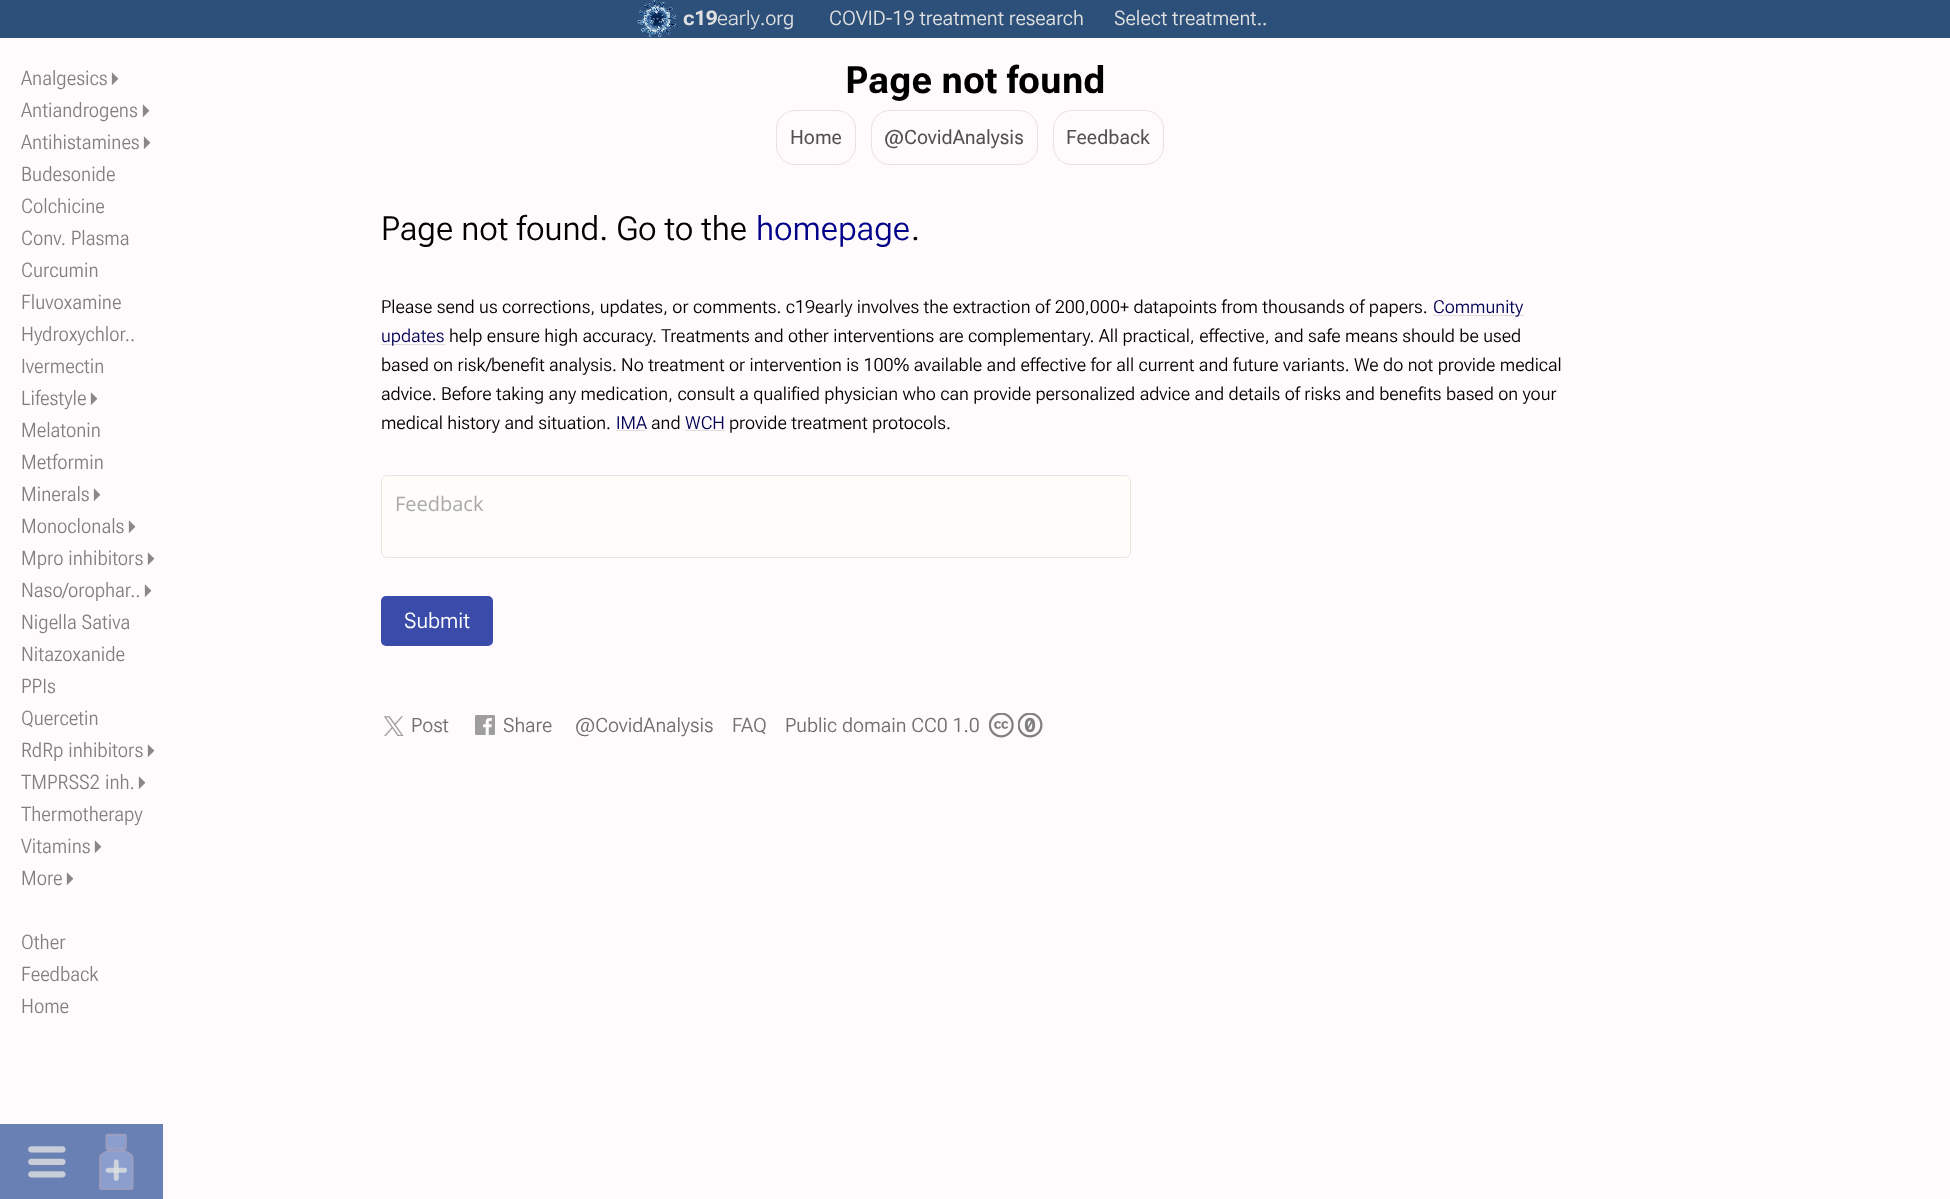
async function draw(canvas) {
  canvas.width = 1950
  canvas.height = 1199
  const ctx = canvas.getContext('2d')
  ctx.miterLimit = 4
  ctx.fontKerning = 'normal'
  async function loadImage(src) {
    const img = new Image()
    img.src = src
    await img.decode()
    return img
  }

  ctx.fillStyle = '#fffafc'
  ctx.fillRect(0, 0, 1950, 1199)
  ctx.fillStyle = '#2c507a'
  ctx.fillRect(0, 0, 1950, 38)
  ctx.drawImage(await loadImage('image0.png'), 637, 0, 40, 38)
  ctx.font = 'italic bold 20px "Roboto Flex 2"'
  ctx.fillStyle = '#e0e0e0'
  ctx.fillText('c19', 683, 25)
  ctx.font = 'italic 200 20px Roboto Flex'
  ctx.fillText('early', 717, 25)
  ctx.font = 'italic 300 20px Roboto Flex'
  ctx.fillText('.org', 760, 25)
  ctx.fillText('COVID-19 treatment research', 829, 25)
  ctx.fillText('Select treatment..', 1114, 25)
  ctx.font = 'italic 300 20px "Roboto Flex 2"'
  ctx.fillStyle = '#808080'
  ctx.fillText('Analgesics', 21, 85)
  ctx.font = '18px FreeSans'
  ctx.fillStyle = '#888'
  ctx.fillText('⏵', 110, 85)
  ctx.font = 'italic 300 20px "Roboto Flex 2"'
  ctx.fillStyle = '#808080'
  ctx.fillText('Antiandrogens', 21, 117)
  ctx.font = '18px FreeSans'
  ctx.fillStyle = '#888'
  ctx.fillText('⏵', 141, 117)
  ctx.font = 'italic 300 20px "Roboto Flex 2"'
  ctx.fillStyle = '#808080'
  ctx.fillText('Antihistamines', 21, 149)
  ctx.font = '18px FreeSans'
  ctx.fillStyle = '#888'
  ctx.fillText('⏵', 142, 149)
  ctx.font = 'italic 300 20px "Roboto Flex 2"'
  ctx.fillStyle = '#808080'
  ctx.fillText('Budesonide', 21, 181)
  ctx.fillText('Colchicine', 21, 213)
  ctx.fillText('Conv. Plasma', 21, 245)
  ctx.fillText('Curcumin', 21, 277)
  ctx.fillText('Fluvoxamine', 21, 309)
  ctx.fillText('Hydroxychlor..', 21, 341)
  ctx.fillText('Ivermectin', 21, 373)
  ctx.fillText('Lifestyle', 21, 405)
  ctx.font = '18px FreeSans'
  ctx.fillStyle = '#888'
  ctx.fillText('⏵', 89, 405)
  ctx.font = 'italic 300 20px "Roboto Flex 2"'
  ctx.fillStyle = '#808080'
  ctx.fillText('Melatonin', 21, 437)
  ctx.fillText('Metformin', 21, 469)
  ctx.fillText('Minerals', 21, 501)
  ctx.font = '18px FreeSans'
  ctx.fillStyle = '#888'
  ctx.fillText('⏵', 92, 501)
  ctx.font = 'italic 300 20px "Roboto Flex 2"'
  ctx.fillStyle = '#808080'
  ctx.fillText('Monoclonals', 21, 533)
  ctx.font = '18px FreeSans'
  ctx.fillStyle = '#888'
  ctx.fillText('⏵', 127, 533)
  ctx.font = 'italic 300 20px "Roboto Flex 2"'
  ctx.fillStyle = '#808080'
  ctx.fillText('Mpro inhibitors', 21, 565)
  ctx.font = '18px FreeSans'
  ctx.fillStyle = '#888'
  ctx.fillText('⏵', 146, 565)
  ctx.font = 'italic 300 20px "Roboto Flex 2"'
  ctx.fillStyle = '#808080'
  ctx.fillText('Naso/orophar..', 21, 597)
  ctx.font = '18px FreeSans'
  ctx.fillStyle = '#888'
  ctx.fillText('⏵', 143, 597)
  ctx.font = 'italic 300 20px "Roboto Flex 2"'
  ctx.fillStyle = '#808080'
  ctx.fillText('Nigella Sativa', 21, 629)
  ctx.fillText('Nitazoxanide', 21, 661)
  ctx.fillText('PPIs', 21, 693)
  ctx.fillText('Quercetin', 21, 725)
  ctx.fillText('RdRp inhibitors', 21, 757)
  ctx.font = '18px FreeSans'
  ctx.fillStyle = '#888'
  ctx.fillText('⏵', 146, 757)
  ctx.font = 'italic 300 20px "Roboto Flex 2"'
  ctx.fillStyle = '#808080'
  ctx.fillText('TMPRSS2 inh.', 21, 789)
  ctx.font = '18px FreeSans'
  ctx.fillStyle = '#888'
  ctx.fillText('⏵', 137, 789)
  ctx.font = 'italic 300 20px "Roboto Flex 2"'
  ctx.fillStyle = '#808080'
  ctx.fillText('Thermotherapy', 21, 821)
  ctx.fillText('Vitamins', 21, 853)
  ctx.font = '18px FreeSans'
  ctx.fillStyle = '#888'
  ctx.fillText('⏵', 93, 853)
  ctx.font = 'italic 300 20px "Roboto Flex 2"'
  ctx.fillStyle = '#808080'
  ctx.fillText('More', 21, 885)
  ctx.font = '18px FreeSans'
  ctx.fillStyle = '#888'
  ctx.fillText('⏵', 65, 885)
  ctx.font = 'italic 300 20px "Roboto Flex 2"'
  ctx.fillStyle = '#808080'
  ctx.fillText('Other', 21, 949)
  ctx.fillText('Feedback', 21, 981)
  ctx.fillText('Home', 21, 1013)
  ctx.font = 'italic bold 37.5px Roboto Flex'
  ctx.fillStyle = '#000'
  ctx.fillText('Page not found', 845, 93)
  ctx.beginPath()
  ctx.roundRect(776.5, 110.5, 79, 54, 18.5)
  ctx.strokeStyle = '#e9e0e7'
  ctx.stroke()
  ctx.font = 'italic 19.75px Roboto Flex'
  ctx.fillStyle = '#505050'
  ctx.fillText('Home', 790, 144)
  ctx.beginPath()
  ctx.roundRect(871.5, 110.5, 166, 54, 18.5)
  ctx.stroke()
  ctx.fillText('@CovidAnalysis', 884, 144)
  ctx.beginPath()
  ctx.roundRect(1053.5, 110.5, 110, 54, 18.5)
  ctx.stroke()
  ctx.fillText('Feedback', 1066, 144)
  ctx.font = 'italic 300 33.25px Roboto Flex'
  ctx.fillStyle = '#000'
  ctx.fillText('Page not found. Go to the', 381, 240)
  ctx.fillStyle = '#008'
  ctx.fillText('homepage', 756, 240)
  ctx.fillStyle = '#000'
  ctx.fillText('.', 911, 240)
  ctx.font = 'italic 300 18.1px Roboto Flex'
  ctx.fillText('Please send us corrections, updates, or comments. c19early involves the extraction of 200,000+ datapoints from thousands of papers.', 381, 313)
  ctx.fillStyle = '#ddd'
  ctx.fillRect(1433, 315, 91, 1)
  ctx.fillStyle = '#005'
  ctx.fillText('Community', 1433, 313)
  ctx.fillStyle = '#ddd'
  ctx.fillRect(381, 344, 64, 1)
  ctx.fillStyle = '#005'
  ctx.fillText('updates', 381, 342)
  ctx.fillStyle = '#000'
  ctx.fillText('help ensure high accuracy. Treatments and other interventions are complementary. All practical, effective, and safe means should be used', 449, 342)
  ctx.fillText('based on risk/benefit analysis. No treatment or intervention is 100% available and effective for all current and future variants. We do not provide medical', 381, 371)
  ctx.fillText('advice. Before taking any medication, consult a qualified physician who can provide personalized advice and details of risks and benefits based on your', 381, 400)
  ctx.fillText('medical history and situation.', 381, 429)
  ctx.fillStyle = '#005'
  ctx.fillText('IMA', 616, 429)
  ctx.fillStyle = '#ddd'
  ctx.fillRect(616, 430, 30, 1)
  ctx.fillStyle = '#000'
  ctx.fillText('and', 651, 429)
  ctx.fillStyle = '#005'
  ctx.fillText('WCH', 685, 429)
  ctx.fillStyle = '#ddd'
  ctx.fillRect(685, 430, 40, 1)
  ctx.fillStyle = '#000'
  ctx.fillText('provide treatment protocols.', 729, 429)
  ctx.fillStyle = '#fffdfa'
  ctx.beginPath()
  ctx.roundRect(381.5, 475.5, 749, 82, 5.5)
  ctx.fill()
  ctx.strokeStyle = '#e9e5e2'
  ctx.stroke()
  ctx.font = '20px Open Sans'
  ctx.fillStyle = '#aaa'
  ctx.fillText('Feedback', 395, 511)
  ctx.fillStyle = '#3b4baa'
  ctx.beginPath()
  ctx.roundRect(381, 596, 112, 50, 5)
  ctx.fill()
  ctx.font = 'italic 300 21.5px Roboto Flex'
  ctx.fillStyle = '#fff'
  ctx.fillText('Submit', 404, 628)
  ctx.drawImage(await loadImage('image1.png'), 384, 716, 20, 20)
  ctx.font = 'italic 300 19.75px Roboto Flex'
  ctx.fillStyle = '#707070'
  ctx.fillText('Post', 411, 732)
  ctx.drawImage(await loadImage('image2.png'), 475, 715, 20, 20)
  ctx.fillText('Share', 503, 732)
  ctx.fillText('@CovidAnalysis', 575, 732)
  ctx.fillText('FAQ', 732, 732)
  ctx.fillText('Public domain CC0 1.0', 785, 732)
  ctx.drawImage(await loadImage('image3.png'), 989, 713, 25, 25)
  ctx.drawImage(await loadImage('image4.png'), 1018, 713, 25, 25)
  ctx.fillStyle = '#6980b4'
  ctx.fillRect(0, 1124, 163, 75)
  ctx.drawImage(await loadImage('image5.png'), 28, 1146, 38, 32)
  ctx.drawImage(await loadImage('image6.png'), 99, 1133, 35, 57)
}

draw(document.querySelector('canvas'))
